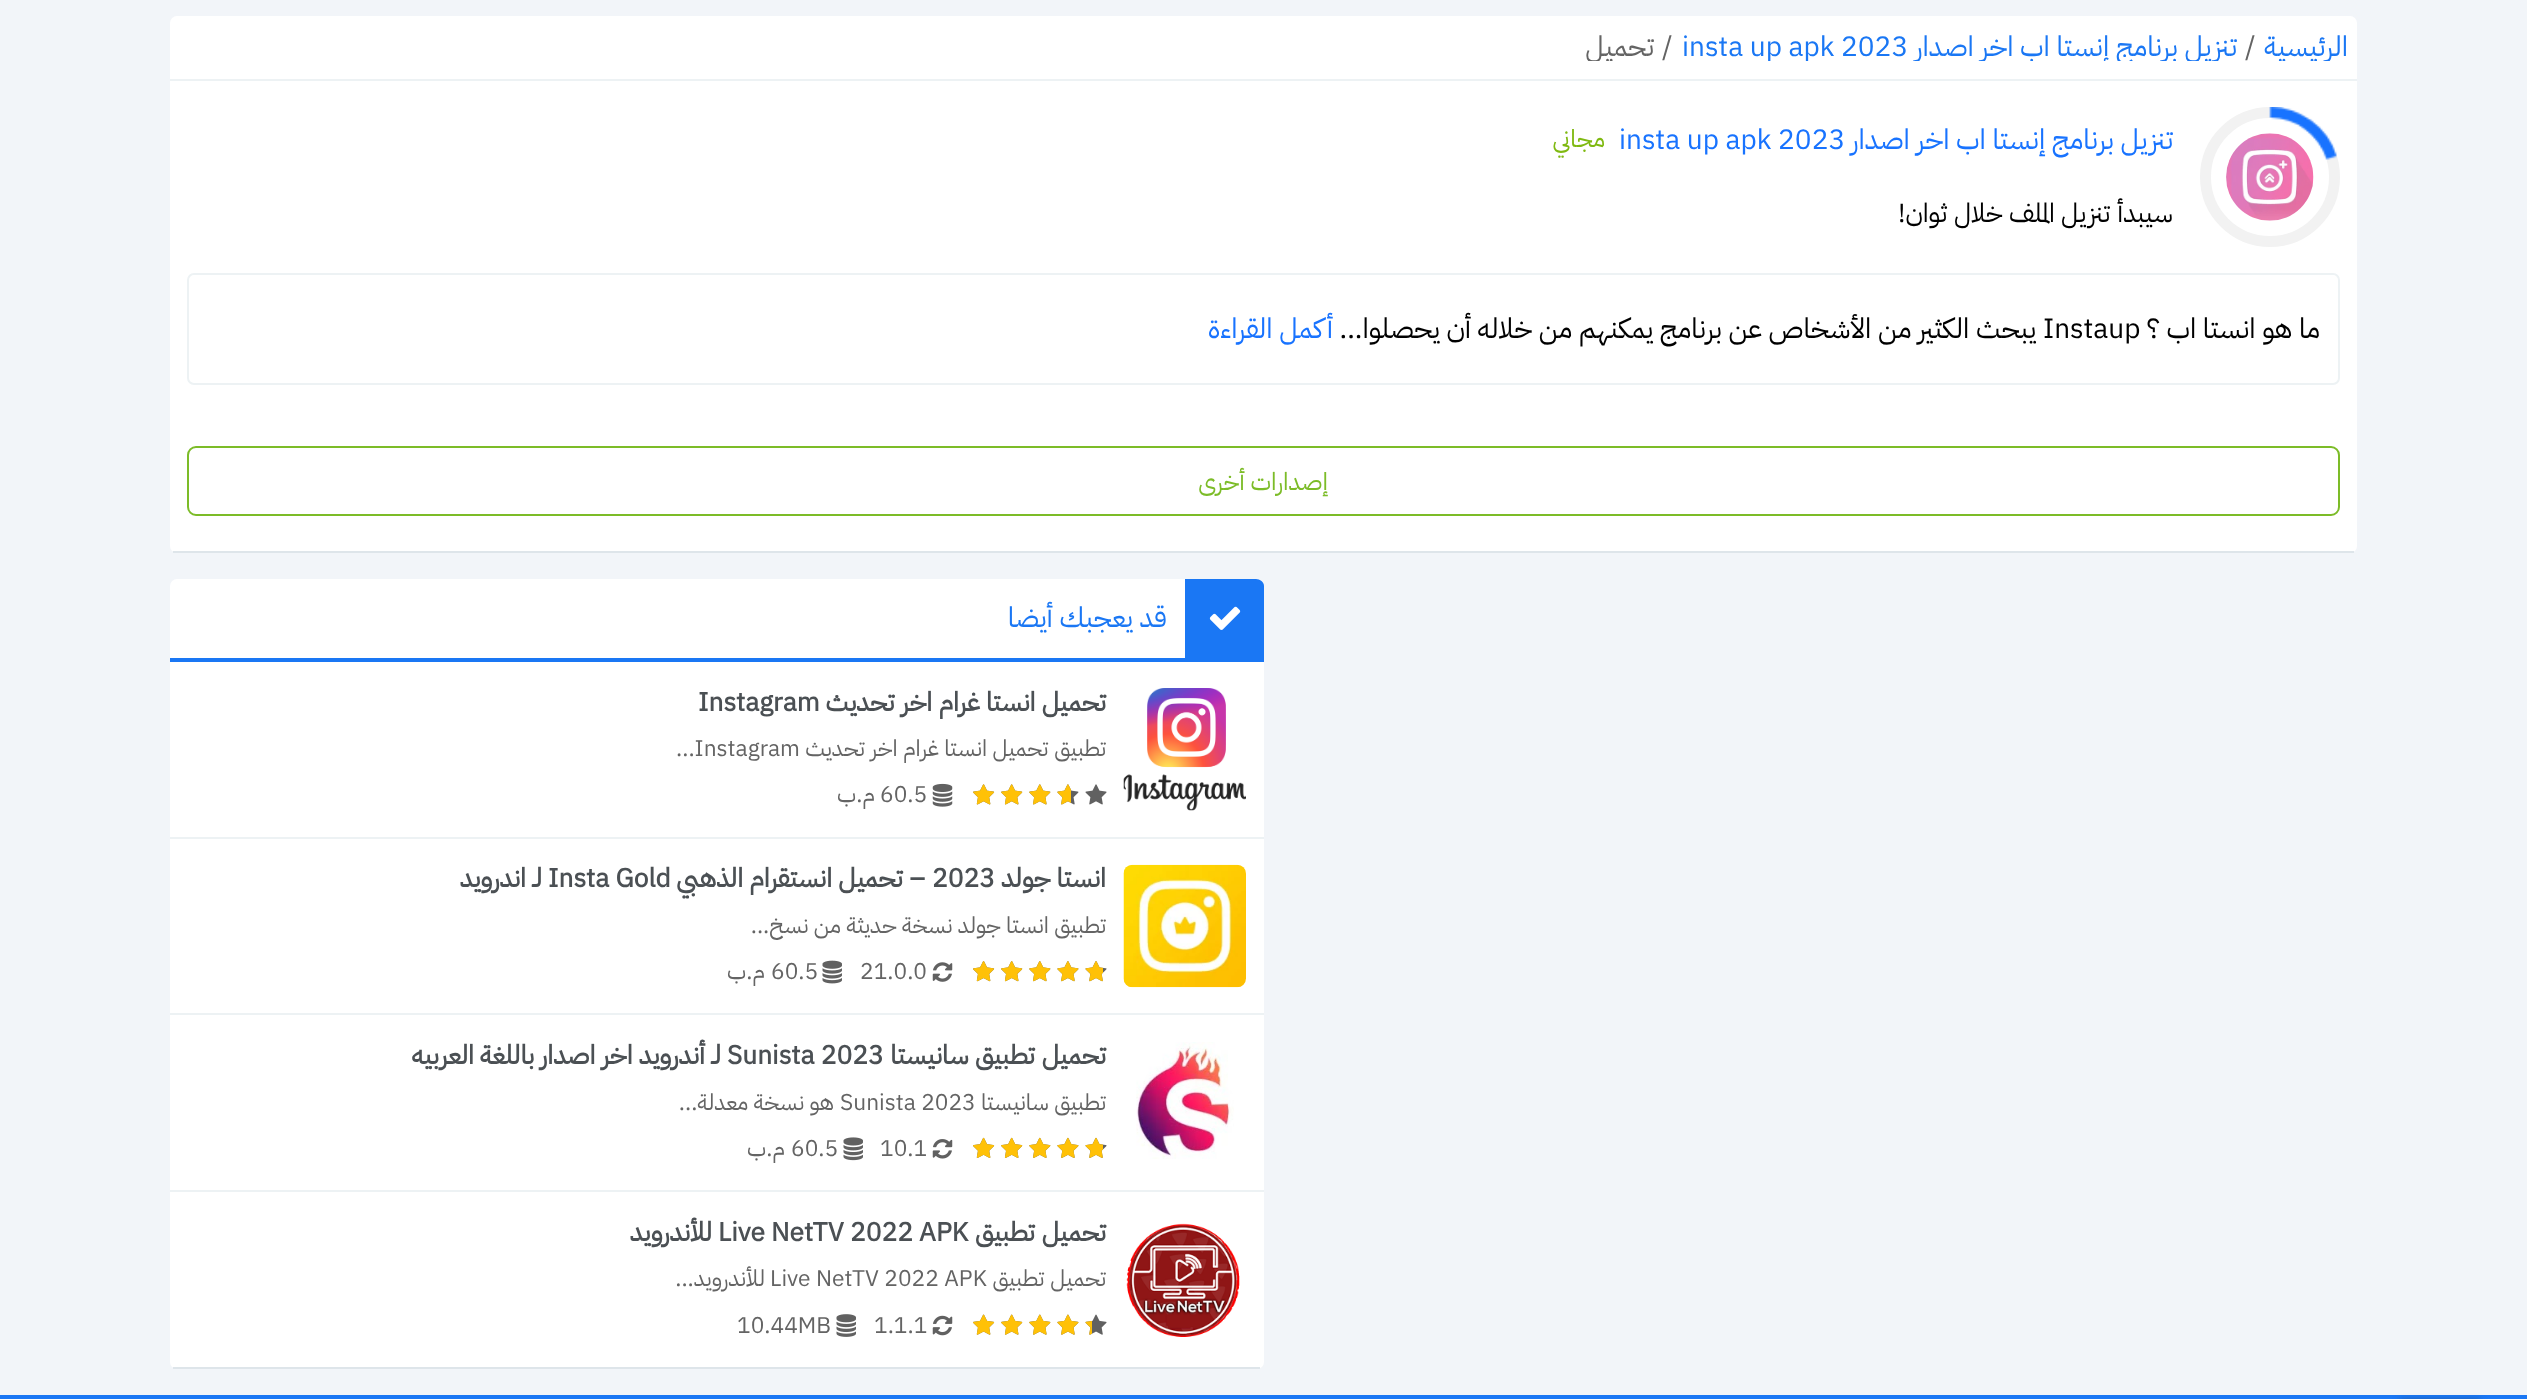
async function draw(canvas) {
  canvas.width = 2527
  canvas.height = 1399
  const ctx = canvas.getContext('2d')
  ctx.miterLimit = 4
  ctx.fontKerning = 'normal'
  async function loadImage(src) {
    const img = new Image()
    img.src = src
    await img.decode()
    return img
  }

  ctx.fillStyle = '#f2f5f9'
  ctx.fillRect(0, 0, 2527, 1399)
  ctx.fillStyle = '#fff'
  ctx.beginPath()
  ctx.roundRect(170, 16, 2187, 537, 7)
  ctx.fill()
  ctx.fillStyle = '#dee5ea'
  ctx.fillRect(173, 551, 2181, 2)
  ctx.fillStyle = '#edf2f4'
  ctx.fillRect(170, 79, 2187, 2)
  ctx.save()
  ctx.beginPath()
  ctx.rect(179, 33, 2170, 28)
  ctx.clip()
  ctx.direction = 'rtl'
  ctx.font = '28px IBM Plex Sans Arabic'
  ctx.fillStyle = '#1a77f4'
  ctx.fillText('الرئيسية', 2348, 56)
  ctx.restore()
  ctx.font = '28px IBM Plex Sans Arabic'
  ctx.fillStyle = '#646464'
  ctx.fillText('/', 2245, 56)
  ctx.save()
  ctx.beginPath()
  ctx.rect(179, 33, 2170, 28)
  ctx.clip()
  ctx.direction = 'rtl'
  ctx.fillStyle = '#1a77f4'
  ctx.fillText('تنزيل برنامج إنستا اب اخر اصدار', 2237, 56)
  ctx.restore()
  ctx.fillStyle = '#1a77f4'
  ctx.fillText('2023', 1841, 56)
  ctx.save()
  ctx.beginPath()
  ctx.rect(179, 33, 2170, 28)
  ctx.clip()
  ctx.fillText('insta up apk', 1682, 56)
  ctx.restore()
  ctx.fillStyle = '#646464'
  ctx.fillText('/', 1662, 56)
  ctx.save()
  ctx.beginPath()
  ctx.rect(179, 33, 2170, 28)
  ctx.clip()
  ctx.direction = 'rtl'
  ctx.fillText('تحميل', 1654, 56)
  ctx.restore()
  ctx.beginPath()
  ctx.arc(2270, 177, 64.5, 0, 2 * Math.PI)
  ctx.strokeStyle = '#f2f2f2'
  ctx.lineWidth = 11
  ctx.stroke()
  ctx.drawImage(await loadImage('image0.png'), 2226, 133, 88, 88)
  ctx.drawImage(await loadImage('image1.png'), 2269, 107, 68, 53)
  ctx.direction = 'rtl'
  ctx.fillStyle = '#1873ff'
  ctx.fillText('تنزيل برنامج إنستا اب اخر اصدار', 2173, 149)
  ctx.direction = 'ltr'
  ctx.fillText('insta up apk 2023', 1619, 149)
  ctx.direction = 'rtl'
  ctx.font = '24.5px IBM Plex Sans Arabic'
  ctx.fillStyle = '#7fb911'
  ctx.fillText('مجاني', 1605, 147)
  ctx.font = '26.25px IBM Plex Sans Arabic'
  ctx.fillStyle = '#000'
  ctx.fillText('سيبدأ تنزيل الملف خلال ثوان!', 2173, 222)
  ctx.beginPath()
  ctx.roundRect(188, 274, 2151, 110, 6)
  ctx.strokeStyle = '#edf2f4'
  ctx.lineWidth = 2
  ctx.stroke()
  ctx.font = '28px IBM Plex Sans Arabic'
  ctx.fillText('ما هو انستا اب ؟', 2320, 338)
  ctx.direction = 'ltr'
  ctx.fillText('Instaup', 2043, 338)
  ctx.direction = 'rtl'
  ctx.fillText('يبحث الكثير من الأشخاص عن برنامج يمكنهم من خلاله أن يحصلوا...', 2036, 338)
  ctx.fillStyle = '#1873ff'
  ctx.fillText('أكمل القراءة', 1333, 338)
  ctx.beginPath()
  ctx.roundRect(188, 447, 2151, 68, 8)
  ctx.strokeStyle = '#7cbc28'
  ctx.stroke()
  ctx.font = '24.5px IBM Plex Sans Arabic'
  ctx.fillStyle = '#7cbc28'
  ctx.fillText('إصدارات أخرى', 1328, 490)
  ctx.fillStyle = '#fff'
  ctx.beginPath()
  ctx.roundRect(170, 579, 1094, 790, 7)
  ctx.fill()
  ctx.fillStyle = '#dee5ea'
  ctx.fillRect(173, 1367, 1087, 2)
  ctx.fillStyle = '#1a77f4'
  ctx.fillRect(170, 658, 1094, 4)
  ctx.beginPath()
  ctx.moveTo(1264, 658)
  ctx.lineTo(1185, 658)
  ctx.lineTo(1185, 579)
  ctx.lineTo(1256, 579)
  ctx.bezierCurveTo(1260, 579, 1264, 582, 1264, 586)
  ctx.closePath()
  ctx.fill()
  ctx.drawImage(await loadImage('image2.png'), 1209, 606, 32, 24)
  ctx.font = '28px IBM Plex Sans Arabic'
  ctx.fillText('قد يعجبك أيضا', 1167, 627)
  ctx.fillStyle = '#edf2f4'
  ctx.fillRect(170, 837, 1094, 2)
  ctx.drawImage(await loadImage('image3.png'), 1123, 688, 123, 123)
  ctx.font = 'bold 26.25px IBM Plex Sans Arabic'
  ctx.fillStyle = '#4b5054'
  ctx.fillText('تحميل انستا غرام اخر تحديث', 1106, 711)
  ctx.direction = 'ltr'
  ctx.fillText('Instagram', 698, 711)
  ctx.direction = 'rtl'
  ctx.font = '22.75px IBM Plex Sans Arabic'
  ctx.fillStyle = '#646464'
  ctx.fillText('تطبيق تحميل انستا غرام اخر تحديث', 1106, 756)
  ctx.direction = 'ltr'
  ctx.fillText('...Instagram', 676, 756)
  ctx.drawImage(await loadImage('image4.png'), 973, 784, 134, 21)
  ctx.drawImage(await loadImage('image5.png'), 973, 784, 98, 21)
  ctx.drawImage(await loadImage('image6.png'), 932, 783, 21, 24)
  ctx.fillText('60.5', 880, 802)
  ctx.direction = 'rtl'
  ctx.fillText('م.ب', 875, 802)
  ctx.fillStyle = '#edf2f4'
  ctx.fillRect(170, 1013, 1094, 2)
  ctx.drawImage(await loadImage('image7.png'), 1123, 864, 123, 124)
  ctx.font = 'bold 26.25px IBM Plex Sans Arabic'
  ctx.fillStyle = '#4b5054'
  ctx.fillText('انستا جولد', 1106, 887)
  ctx.direction = 'ltr'
  ctx.fillText('2023', 932, 887)
  ctx.direction = 'rtl'
  ctx.fillText('– تحميل انستقرام الذهبي', 925, 887)
  ctx.direction = 'ltr'
  ctx.fillText('Insta Gold', 548, 887)
  ctx.direction = 'rtl'
  ctx.fillText('لـ اندرويد', 542, 887)
  ctx.font = '22.75px IBM Plex Sans Arabic'
  ctx.fillStyle = '#646464'
  ctx.fillText('تطبيق انستا جولد نسخة حديثة من نسخ...', 1106, 933)
  ctx.drawImage(await loadImage('image8.png'), 973, 961, 134, 21)
  ctx.drawImage(await loadImage('image9.png'), 973, 961, 130, 21)
  ctx.drawImage(await loadImage('image10.png'), 932, 962, 21, 20)
  ctx.direction = 'ltr'
  ctx.fillText('21.0.0', 860, 979)
  ctx.drawImage(await loadImage('image11.png'), 822, 960, 20, 24)
  ctx.fillText('60.5', 771, 979)
  ctx.direction = 'rtl'
  ctx.fillText('م.ب', 765, 979)
  ctx.fillStyle = '#edf2f4'
  ctx.fillRect(170, 1190, 1094, 2)
  ctx.drawImage(await loadImage('image12.png'), 1136, 1042, 98, 117)
  ctx.font = 'bold 26.25px IBM Plex Sans Arabic'
  ctx.fillStyle = '#4b5054'
  ctx.fillText('تحميل تطبيق سانیستا', 1106, 1064)
  ctx.direction = 'ltr'
  ctx.fillText('Sunista 2023', 727, 1064)
  ctx.direction = 'rtl'
  ctx.fillText('لـ أندرويد اخر اصدار باللغة العربيه', 721, 1064)
  ctx.font = '22.75px IBM Plex Sans Arabic'
  ctx.fillStyle = '#646464'
  ctx.fillText('تطبيق سانیستا', 1106, 1110)
  ctx.direction = 'ltr'
  ctx.fillText('Sunista 2023', 840, 1110)
  ctx.direction = 'rtl'
  ctx.fillText('هو نسخة معدلة...', 834, 1110)
  ctx.drawImage(await loadImage('image13.png'), 973, 1137, 134, 21)
  ctx.drawImage(await loadImage('image14.png'), 973, 1137, 130, 21)
  ctx.drawImage(await loadImage('image15.png'), 932, 1139, 21, 20)
  ctx.direction = 'ltr'
  ctx.fillText('10.1', 880, 1156)
  ctx.drawImage(await loadImage('image16.png'), 843, 1137, 20, 24)
  ctx.fillText('60.5', 791, 1156)
  ctx.direction = 'rtl'
  ctx.fillText('م.ب', 785, 1156)
  ctx.drawImage(await loadImage('image17.png'), 1126, 1223, 114, 114)
  ctx.font = 'bold 26.25px IBM Plex Sans Arabic'
  ctx.fillStyle = '#4b5054'
  ctx.fillText('تحميل تطبيق', 1106, 1241)
  ctx.direction = 'ltr'
  ctx.fillText('Live NetTV 2022 APK', 718, 1241)
  ctx.direction = 'rtl'
  ctx.fillText('للأندرويد', 712, 1241)
  ctx.font = '22.75px IBM Plex Sans Arabic'
  ctx.fillStyle = '#646464'
  ctx.fillText('تحميل تطبيق', 1106, 1286)
  ctx.direction = 'ltr'
  ctx.fillText('Live NetTV 2022 APK', 770, 1286)
  ctx.direction = 'rtl'
  ctx.fillText('للأندرويد...', 765, 1286)
  ctx.drawImage(await loadImage('image18.png'), 973, 1314, 134, 21)
  ctx.drawImage(await loadImage('image19.png'), 973, 1314, 119, 21)
  ctx.drawImage(await loadImage('image20.png'), 932, 1315, 21, 21)
  ctx.direction = 'ltr'
  ctx.fillText('1.1.1', 874, 1333)
  ctx.drawImage(await loadImage('image21.png'), 836, 1314, 20, 23)
  ctx.fillText('10.44MB', 737, 1333)
  ctx.fillStyle = '#1a77f4'
  ctx.fillRect(0, 1395, 2527, 4)
  ctx.fillStyle = '#333'
  ctx.filter = 'blur(3.5px)'
  ctx.beginPath()
  ctx.roundRect(2398, 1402, 84, 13, 5)
  ctx.fill()
  ctx.filter = 'none'
}

draw(document.querySelector('canvas'))
